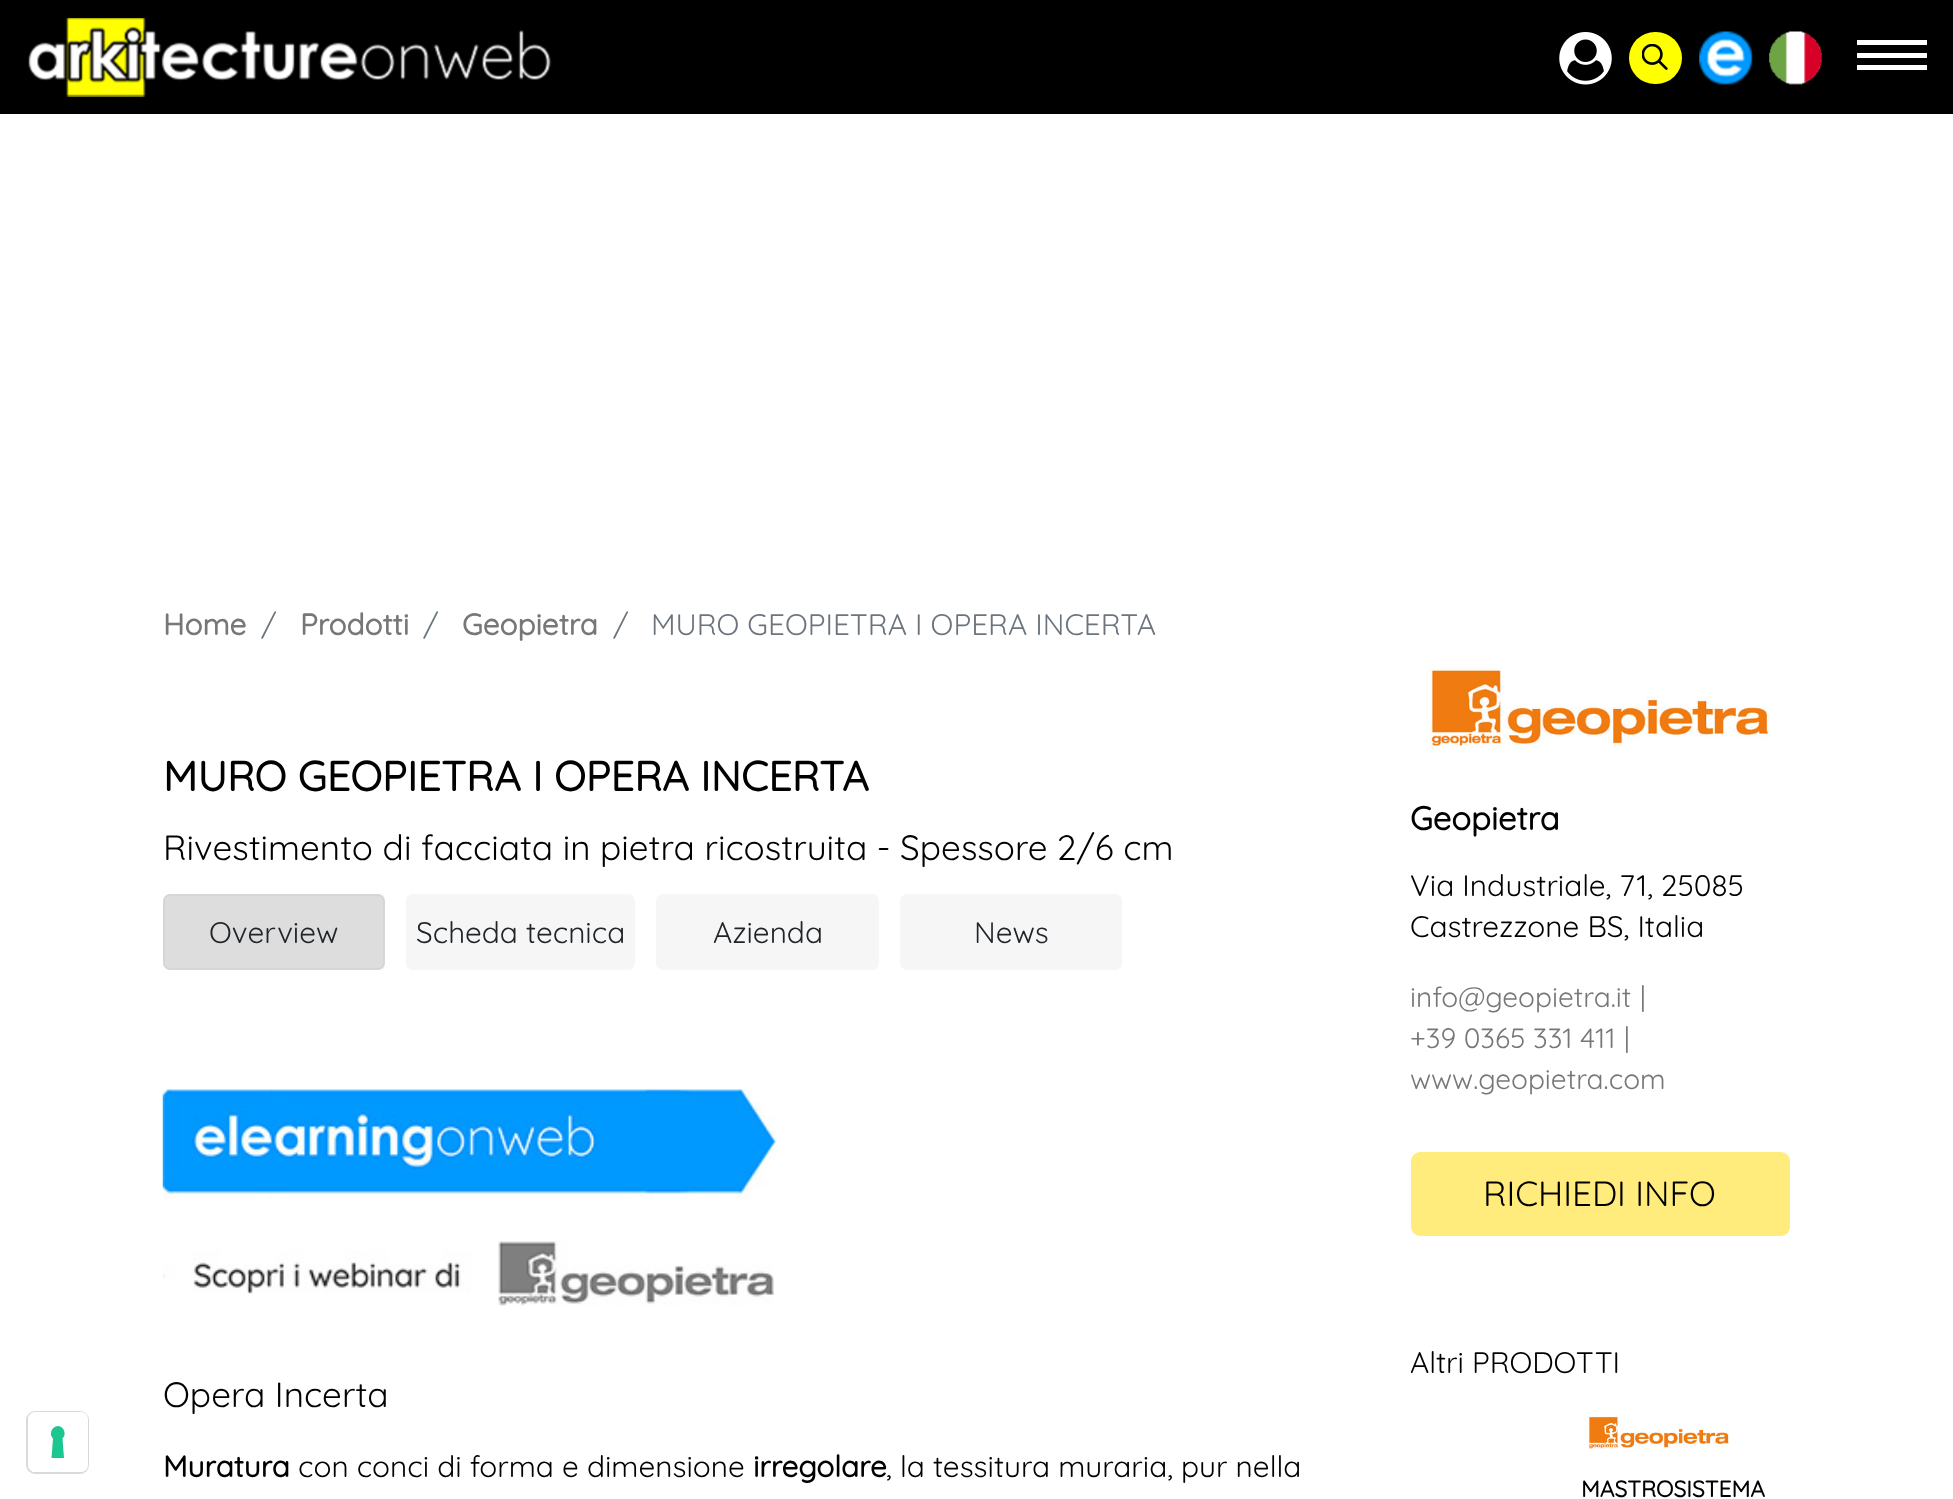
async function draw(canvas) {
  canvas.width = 1953
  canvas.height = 1499
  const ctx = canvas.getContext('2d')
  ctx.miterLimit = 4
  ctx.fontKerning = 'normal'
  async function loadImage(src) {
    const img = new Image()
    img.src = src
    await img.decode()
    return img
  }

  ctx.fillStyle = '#fff'
  ctx.fillRect(0, 0, 1953, 1499)
  ctx.beginPath()
  ctx.roundRect(27, 1412, 61, 61, 8)
  ctx.strokeStyle = '#d9d9d9'
  ctx.lineWidth = 2
  ctx.stroke()
  ctx.beginPath()
  ctx.roundRect(28, 1412, 60, 60, 7)
  ctx.fill()
  ctx.fillStyle = '#1cc691'
  ctx.beginPath()
  ctx.moveTo(58, 1426)
  ctx.bezierCurveTo(64, 1426.5, 67, 1434.5, 62.5, 1438.5)
  ctx.lineTo(64, 1458)
  ctx.lineTo(51.5, 1458)
  ctx.lineTo(53, 1438.5)
  ctx.bezierCurveTo(48.5, 1434.5, 51.5, 1426.5, 58, 1426)
  ctx.closePath()
  ctx.fill('evenodd')
  ctx.fillStyle = '#000'
  ctx.fillRect(0, 0, 1953, 114)
  ctx.drawImage(await loadImage('image0.png'), 28, 18, 524, 79)
  ctx.drawImage(await loadImage('image1.png'), 1559, 32, 53, 53)
  ctx.fillStyle = '#ff0'
  ctx.beginPath()
  ctx.roundRect(1629, 32, 53, 52, 26)
  ctx.fill()
  ctx.drawImage(await loadImage('image2.png'), 1642, 44, 26, 26)
  ctx.drawImage(await loadImage('image3.png'), 1699, 31, 54, 54)
  ctx.drawImage(await loadImage('image4.png'), 1769, 31, 53, 54)
  ctx.fillStyle = '#fff'
  ctx.fillRect(1857, 40, 70, 5)
  ctx.fillRect(1857, 53, 70, 5)
  ctx.fillRect(1857, 65, 70, 5)
  ctx.font = 'bold 29.75px Quicksand'
  ctx.fillStyle = '#777'
  ctx.fillText('Home', 163, 635)
  ctx.font = '300 29.75px Quicksand'
  ctx.fillStyle = '#6c757d'
  ctx.fillText('/', 261, 635)
  ctx.font = 'bold 29.75px Quicksand'
  ctx.fillStyle = '#777'
  ctx.fillText('Prodotti', 300, 635)
  ctx.font = '300 29.75px Quicksand'
  ctx.fillStyle = '#6c757d'
  ctx.fillText('/', 423, 635)
  ctx.font = 'bold 29.75px Quicksand'
  ctx.fillStyle = '#777'
  ctx.fillText('Geopietra', 462, 635)
  ctx.font = '300 29.75px Quicksand'
  ctx.fillStyle = '#6c757d'
  ctx.fillText('/', 613, 635)
  ctx.fillText('MURO GEOPIETRA I OPERA INCERTA', 651, 635)
  ctx.font = 'bold 41.6px Quicksand'
  ctx.fillStyle = '#000'
  ctx.fillText('MURO GEOPIETRA I OPERA INCERTA', 163, 791)
  ctx.font = '300 35.1px Quicksand'
  ctx.fillText('Rivestimento di facciata in pietra ricostruita - Spessore 2/6 cm', 163, 860)
  ctx.fillStyle = '#ddd'
  ctx.beginPath()
  ctx.roundRect(164, 895, 220, 74, 6)
  ctx.fill()
  ctx.strokeStyle = '#d6d6d6'
  ctx.stroke()
  ctx.font = '300 29.75px Quicksand'
  ctx.fillStyle = '#212529'
  ctx.fillText('Overview', 209, 943)
  ctx.fillStyle = '#f6f6f6'
  ctx.beginPath()
  ctx.roundRect(406, 894, 229, 76, 7)
  ctx.fill()
  ctx.fillStyle = '#212529'
  ctx.fillText('Scheda tecnica', 416, 943)
  ctx.fillStyle = '#f6f6f6'
  ctx.beginPath()
  ctx.roundRect(656, 894, 223, 76, 7)
  ctx.fill()
  ctx.fillStyle = '#212529'
  ctx.fillText('Azienda', 713, 943)
  ctx.fillStyle = '#f6f6f6'
  ctx.beginPath()
  ctx.roundRect(900, 894, 222, 76, 7)
  ctx.fill()
  ctx.fillStyle = '#212529'
  ctx.fillText('News', 974, 943)
  ctx.drawImage(await loadImage('image5.png'), 162, 1088, 614, 112)
  ctx.drawImage(await loadImage('image6.png'), 162, 1241, 612, 65)
  ctx.font = '300 35.1px Quicksand'
  ctx.fillStyle = '#000'
  ctx.fillText('Opera Incerta', 163, 1407)
  ctx.font = 'bold 29.75px Quicksand'
  ctx.fillText('Muratura', 163, 1477)
  ctx.font = '300 29.75px Quicksand'
  ctx.fillText('con conci di forma e dimensione', 298, 1477)
  ctx.font = 'bold 29.75px Quicksand'
  ctx.fillText('irregolare', 753, 1477)
  ctx.font = '300 29.75px Quicksand'
  ctx.fillText(', la tessitura muraria, pur nella', 886, 1477)
  ctx.drawImage(await loadImage('image7.png'), 1427, 667, 344, 80)
  ctx.font = 'bold 32.75px Quicksand'
  ctx.fillText('Geopietra', 1410, 830)
  ctx.font = '300 29.75px Quicksand'
  ctx.fillText('Via Industriale, 71, 25085', 1410, 896)
  ctx.fillText('Castrezzone BS, Italia', 1410, 937)
  ctx.font = '300 28px Quicksand'
  ctx.fillStyle = '#777'
  ctx.fillText('info@geopietra.it', 1410, 1007)
  ctx.fillText('|', 1640, 1007)
  ctx.fillText('+39 0365 331 411', 1410, 1048)
  ctx.fillText('|', 1624, 1048)
  ctx.fillText('www.geopietra.com', 1410, 1089)
  ctx.fillStyle = '#ffec7c'
  ctx.beginPath()
  ctx.roundRect(1411, 1152, 379, 84, 9)
  ctx.fill()
  ctx.font = '300 35px Quicksand'
  ctx.fillStyle = '#000'
  ctx.fillText('RICHIEDI INFO', 1483, 1206)
  ctx.font = '300 29.75px Quicksand'
  ctx.fillText('Altri PRODOTTI', 1410, 1373)
  ctx.drawImage(await loadImage('image8.png'), 1588, 1416, 141, 33)
  ctx.font = 'bold 22.75px Quicksand'
  ctx.fillText('MASTROSISTEMA', 1581, 1497)
}

draw(document.querySelector('canvas'))
